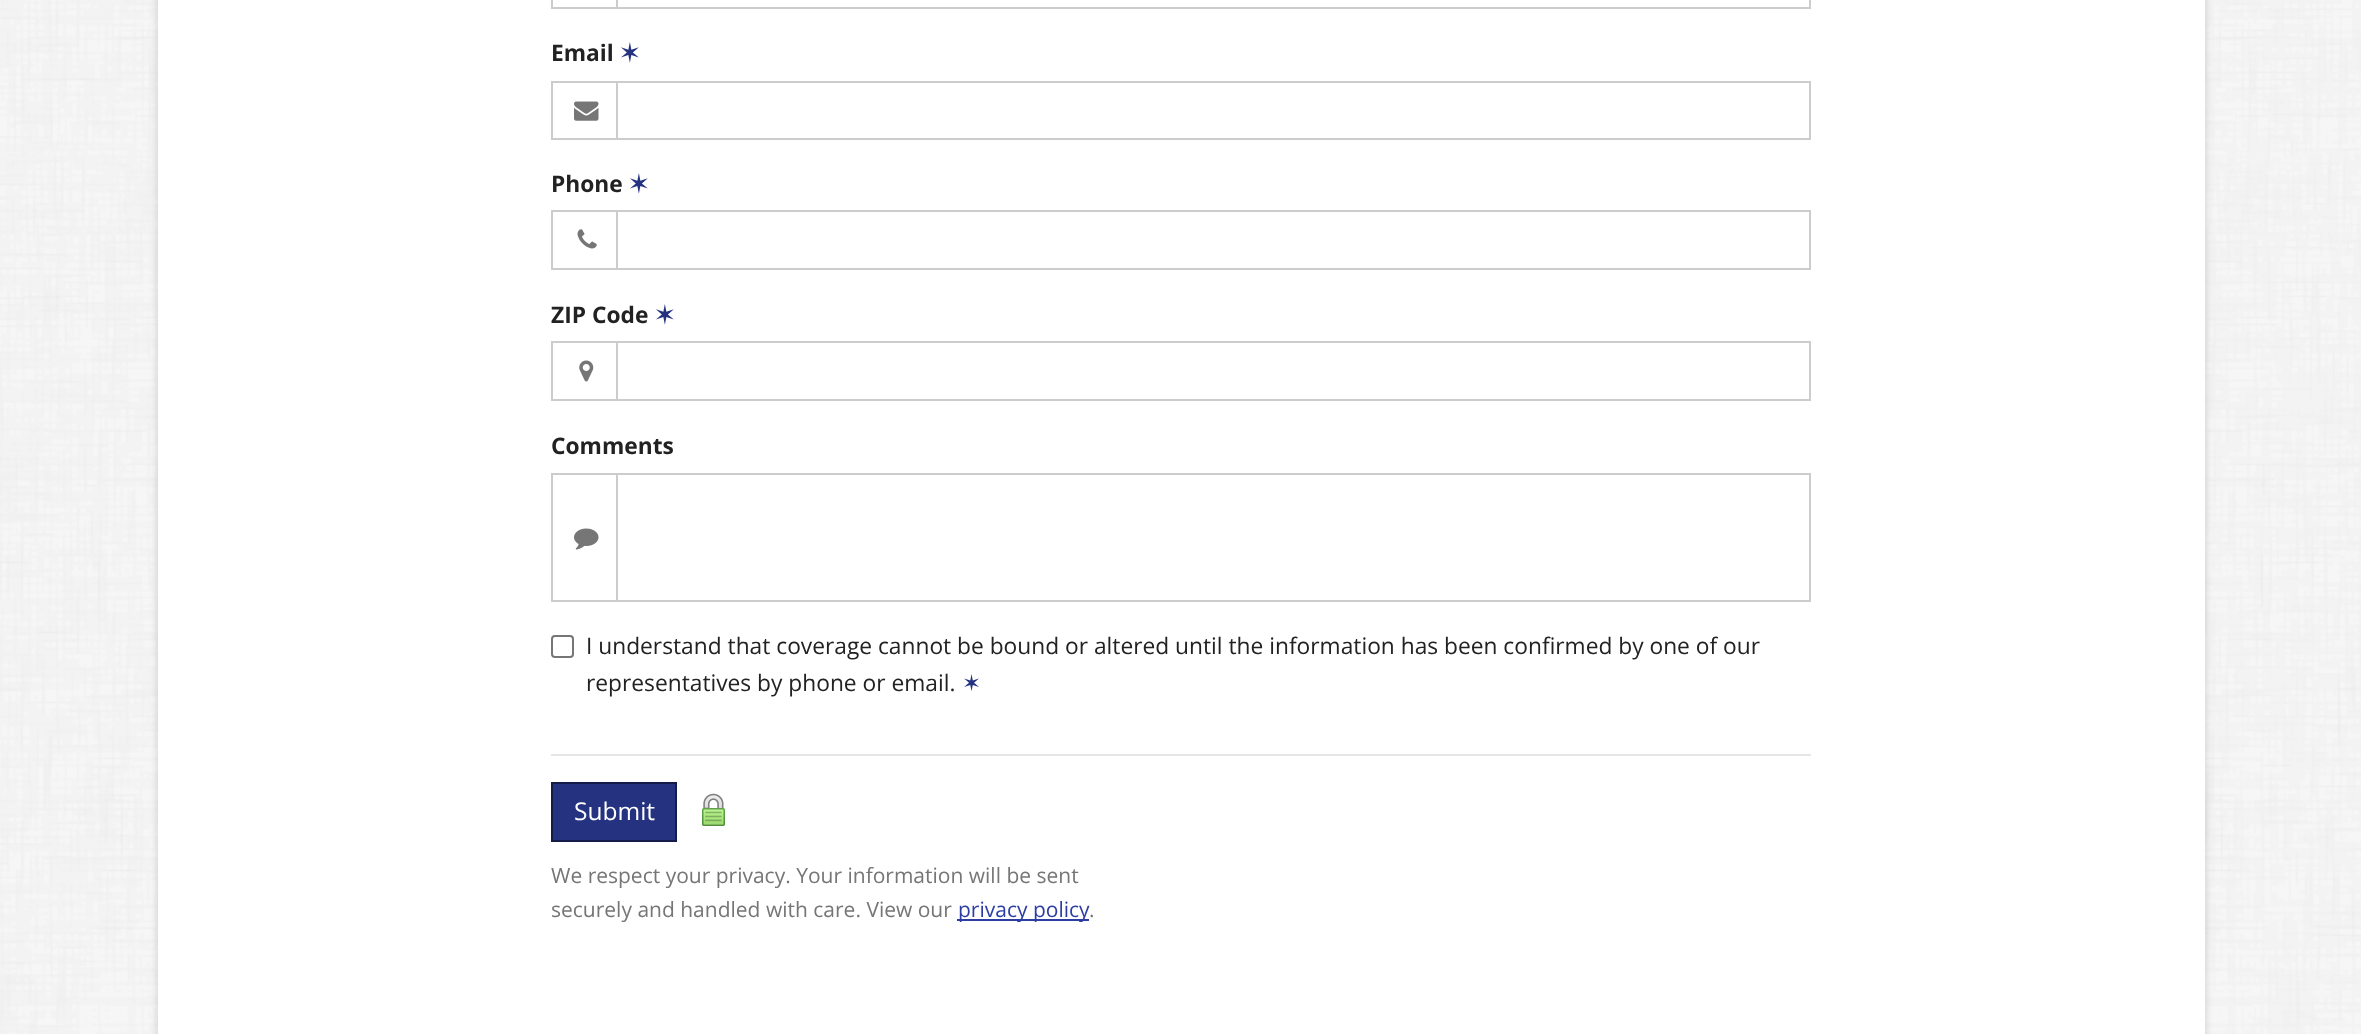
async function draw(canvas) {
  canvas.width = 2361
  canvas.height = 1034
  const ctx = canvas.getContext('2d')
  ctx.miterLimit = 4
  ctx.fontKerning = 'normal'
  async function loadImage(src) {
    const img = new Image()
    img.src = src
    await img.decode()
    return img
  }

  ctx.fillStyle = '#fff'
  ctx.fillRect(0, 0, 2361, 1034)
  ctx.drawImage(await loadImage('image0.png'), 0, 0, 2361, 1034)
  ctx.fillStyle = '#00000029'
  ctx.filter = 'blur(4.5px)'
  ctx.beginPath()
  ctx.rect(158, -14, 2047, 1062)
  ctx.fill()
  ctx.filter = 'none'
  ctx.fillStyle = '#fff'
  ctx.fillRect(158, 0, 2047, 1034)
  ctx.fillStyle = '#ccc'
  ctx.fillRect(551, 7, 65, 2)
  ctx.fillRect(551, 0, 2, 9)
  ctx.strokeStyle = '#ccc'
  ctx.lineWidth = 2
  ctx.strokeRect(617, -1, 1193, 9)
  ctx.font = 'bold 22.75px Open Sans'
  ctx.fillStyle = '#222'
  ctx.fillText('Email', 551, 61)
  ctx.font = 'bold 22.75px DejaVu Sans'
  ctx.fillStyle = '#243280'
  ctx.fillText('✶', 620, 61)
  ctx.fillStyle = '#ccc'
  ctx.fillRect(551, 81, 65, 2)
  ctx.fillRect(551, 138, 65, 2)
  ctx.fillRect(551, 81, 2, 59)
  ctx.drawImage(await loadImage('image1.png'), 574, 101, 25, 20)
  ctx.strokeRect(617, 82, 1193, 57)
  ctx.font = 'bold 22.75px Open Sans'
  ctx.fillStyle = '#222'
  ctx.fillText('Phone', 551, 192)
  ctx.font = 'bold 22.75px DejaVu Sans'
  ctx.fillStyle = '#243280'
  ctx.fillText('✶', 629, 192)
  ctx.fillStyle = '#ccc'
  ctx.fillRect(551, 210, 65, 2)
  ctx.fillRect(551, 268, 65, 2)
  ctx.fillRect(551, 210, 2, 60)
  ctx.drawImage(await loadImage('image2.png'), 577, 229, 20, 20)
  ctx.strokeRect(617, 211, 1193, 58)
  ctx.font = 'bold 22.75px Open Sans'
  ctx.fillStyle = '#222'
  ctx.fillText('ZIP Code', 551, 323)
  ctx.font = 'bold 22.75px DejaVu Sans'
  ctx.fillStyle = '#243280'
  ctx.fillText('✶', 655, 323)
  ctx.fillStyle = '#ccc'
  ctx.fillRect(551, 341, 65, 2)
  ctx.fillRect(551, 399, 65, 2)
  ctx.fillRect(551, 341, 2, 60)
  ctx.drawImage(await loadImage('image3.png'), 579, 360, 15, 22)
  ctx.strokeRect(617, 342, 1193, 58)
  ctx.font = 'bold 22.75px Open Sans'
  ctx.fillStyle = '#222'
  ctx.fillText('Comments', 551, 454)
  ctx.fillStyle = '#ccc'
  ctx.fillRect(551, 473, 65, 2)
  ctx.fillRect(551, 600, 65, 2)
  ctx.fillRect(551, 473, 2, 129)
  ctx.drawImage(await loadImage('image4.png'), 574, 528, 25, 22)
  ctx.strokeRect(617, 474, 1193, 127)
  ctx.beginPath()
  ctx.roundRect(552, 636, 21, 21, 3)
  ctx.strokeStyle = '#767676'
  ctx.stroke()
  ctx.font = '22.75px Open Sans'
  ctx.fillStyle = '#222'
  ctx.fillText('I understand that coverage cannot be bound or altered until the information has been confirmed by one of our', 586, 654)
  ctx.fillText('representatives by phone or email.', 586, 691)
  ctx.font = '22.75px DejaVu Sans'
  ctx.fillStyle = '#243280'
  ctx.fillText('✶', 962, 691)
  ctx.fillStyle = '#e6e6e6'
  ctx.fillRect(551, 754, 1260, 2)
  ctx.fillStyle = '#243280'
  ctx.beginPath()
  ctx.rect(552, 783, 124, 58)
  ctx.fill()
  ctx.strokeStyle = '#141c48'
  ctx.stroke()
  ctx.font = '24.5px Open Sans'
  ctx.fillStyle = '#fff'
  ctx.fillText('Submit', 574, 820)
  ctx.drawImage(await loadImage('image5.png'), 702, 793, 23, 33)
  ctx.font = '21px Open Sans'
  ctx.fillStyle = '#767676'
  ctx.fillText('We respect your privacy. Your information will be sent', 551, 883)
  ctx.fillText('securely and handled with care. View our', 551, 917)
  ctx.fillStyle = '#2c3ea3'
  ctx.fillRect(957, 919, 132, 2)
  ctx.fillText('privacy policy', 958, 917)
  ctx.fillStyle = '#767676'
  ctx.fillText('.', 1089, 917)
}

draw(document.querySelector('canvas'))
